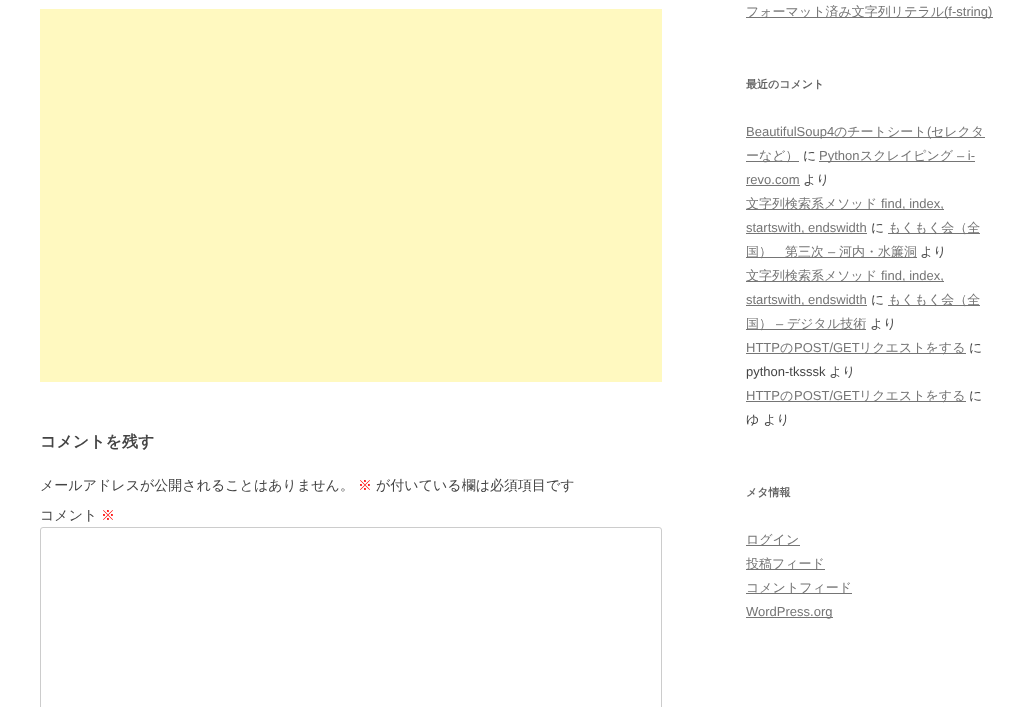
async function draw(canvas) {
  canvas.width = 1035
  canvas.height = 707
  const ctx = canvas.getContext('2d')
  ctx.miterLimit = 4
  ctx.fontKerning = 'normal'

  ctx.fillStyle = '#fff'
  ctx.fillRect(0, 0, 1035, 707)
  ctx.fillStyle = '#fff9c0'
  ctx.fillRect(40, 9, 622, 373)
  ctx.font = 'bold 16px WenQuanYi Zen Hei'
  ctx.fillStyle = '#444'
  ctx.fillText('コメントを残す', 40, 447)
  ctx.font = '500 14px WenQuanYi Zen Hei'
  ctx.fillText('メールアドレスが公開されることはありません。', 40, 490)
  ctx.fillStyle = '#f00'
  ctx.fillText('※', 358, 490)
  ctx.fillStyle = '#444'
  ctx.fillText('が付いている欄は必須項目です', 376, 490)
  ctx.fillText('コメント', 40, 520)
  ctx.fillStyle = '#f00'
  ctx.fillText('※', 101, 520)
  ctx.beginPath()
  ctx.roundRect(40.5, 527.5, 621, 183, 2.5)
  ctx.strokeStyle = '#ccc'
  ctx.stroke()
  ctx.fillStyle = '#757575'
  ctx.fillRect(746, 17, 247, 1)
  ctx.font = '500 13px WenQuanYi Zen Hei'
  ctx.fillText('フォーマット済み文字列リテラル', 746, 16)
  ctx.font = '13px Liberation Sans'
  ctx.fillText('(f-string)', 944, 16)
  ctx.font = 'bold 11px WenQuanYi Zen Hei'
  ctx.fillStyle = '#636363'
  ctx.fillText('最近のコメント', 746, 88)
  ctx.fillStyle = '#757575'
  ctx.fillRect(746, 137, 239, 1)
  ctx.font = '13px Liberation Sans'
  ctx.fillText('BeautifulSoup4', 746, 136)
  ctx.font = '500 13px WenQuanYi Zen Hei'
  ctx.fillText('のチートシート', 834, 136)
  ctx.font = '13px Liberation Sans'
  ctx.fillText('(', 927, 136)
  ctx.font = '500 13px WenQuanYi Zen Hei'
  ctx.fillText('セレクタ', 931, 136)
  ctx.fillRect(746, 161, 53, 1)
  ctx.fillText('ーなど）', 746, 160)
  ctx.fillStyle = '#444'
  ctx.fillText('に', 803, 160)
  ctx.fillStyle = '#757575'
  ctx.fillRect(819, 161, 156, 1)
  ctx.font = '13px Liberation Sans'
  ctx.fillText('Python', 819, 160)
  ctx.font = '500 13px WenQuanYi Zen Hei'
  ctx.fillText('スクレイピング', 860, 160)
  ctx.font = '13px Liberation Sans'
  ctx.fillText('– i-', 957, 160)
  ctx.fillText('revo.com', 746, 184)
  ctx.fillRect(746, 185, 54, 1)
  ctx.font = '500 13px WenQuanYi Zen Hei'
  ctx.fillStyle = '#444'
  ctx.fillText('より', 803, 184)
  ctx.fillStyle = '#757575'
  ctx.fillRect(746, 209, 198, 1)
  ctx.fillText('文字列検索系メソッド', 746, 208)
  ctx.font = '13px Liberation Sans'
  ctx.fillText('find, index,', 881, 208)
  ctx.fillRect(746, 233, 121, 1)
  ctx.fillText('startswith, endswidth', 746, 232)
  ctx.font = '500 13px WenQuanYi Zen Hei'
  ctx.fillStyle = '#444'
  ctx.fillText('に', 871, 232)
  ctx.fillStyle = '#757575'
  ctx.fillRect(888, 233, 92, 1)
  ctx.fillText('もくもく会（全', 888, 232)
  ctx.fillRect(746, 257, 171, 1)
  ctx.fillText('国）　第三次', 746, 256)
  ctx.font = '13px Liberation Sans'
  ctx.fillText('–', 828, 256)
  ctx.font = '500 13px WenQuanYi Zen Hei'
  ctx.fillText('河内・水簾洞', 839, 256)
  ctx.fillStyle = '#444'
  ctx.fillText('より', 920, 256)
  ctx.fillStyle = '#757575'
  ctx.fillRect(746, 281, 198, 1)
  ctx.fillText('文字列検索系メソッド', 746, 280)
  ctx.font = '13px Liberation Sans'
  ctx.fillText('find, index,', 881, 280)
  ctx.fillRect(746, 305, 121, 1)
  ctx.fillText('startswith, endswidth', 746, 304)
  ctx.font = '500 13px WenQuanYi Zen Hei'
  ctx.fillStyle = '#444'
  ctx.fillText('に', 871, 304)
  ctx.fillStyle = '#757575'
  ctx.fillRect(888, 305, 92, 1)
  ctx.fillText('もくもく会（全', 888, 304)
  ctx.fillRect(746, 329, 120, 1)
  ctx.fillText('国）', 746, 328)
  ctx.font = '13px Liberation Sans'
  ctx.fillText('–', 776, 328)
  ctx.font = '500 13px WenQuanYi Zen Hei'
  ctx.fillText('デジタル技術', 787, 328)
  ctx.fillStyle = '#444'
  ctx.fillText('より', 870, 328)
  ctx.font = '13px Liberation Sans'
  ctx.fillStyle = '#757575'
  ctx.fillText('HTTP', 746, 352)
  ctx.fillRect(746, 353, 220, 1)
  ctx.font = '500 13px WenQuanYi Zen Hei'
  ctx.fillText('の', 780, 352)
  ctx.font = '13px Liberation Sans'
  ctx.fillText('POST/GET', 794, 352)
  ctx.font = '500 13px WenQuanYi Zen Hei'
  ctx.fillText('リクエストをする', 859, 352)
  ctx.fillStyle = '#444'
  ctx.fillText('に', 969, 352)
  ctx.font = '13px Liberation Sans'
  ctx.fillText('python-tksssk', 746, 376)
  ctx.font = '500 13px WenQuanYi Zen Hei'
  ctx.fillText('より', 829, 376)
  ctx.font = '13px Liberation Sans'
  ctx.fillStyle = '#757575'
  ctx.fillText('HTTP', 746, 400)
  ctx.fillRect(746, 401, 220, 1)
  ctx.font = '500 13px WenQuanYi Zen Hei'
  ctx.fillText('の', 780, 400)
  ctx.font = '13px Liberation Sans'
  ctx.fillText('POST/GET', 794, 400)
  ctx.font = '500 13px WenQuanYi Zen Hei'
  ctx.fillText('リクエストをする', 859, 400)
  ctx.fillStyle = '#444'
  ctx.fillText('に', 969, 400)
  ctx.fillText('ゆ より', 746, 424)
  ctx.font = 'bold 11px WenQuanYi Zen Hei'
  ctx.fillStyle = '#636363'
  ctx.fillText('メタ情報', 746, 496)
  ctx.fillStyle = '#757575'
  ctx.fillRect(746, 545, 54, 1)
  ctx.font = '500 13px WenQuanYi Zen Hei'
  ctx.fillText('ログイン', 746, 544)
  ctx.fillRect(746, 569, 79, 1)
  ctx.fillText('投稿フィード', 746, 568)
  ctx.fillRect(746, 593, 106, 1)
  ctx.fillText('コメントフィード', 746, 592)
  ctx.fillRect(746, 617, 87, 1)
  ctx.font = '13px Liberation Sans'
  ctx.fillText('WordPress.org', 746, 616)
}

draw(document.querySelector('canvas'))
